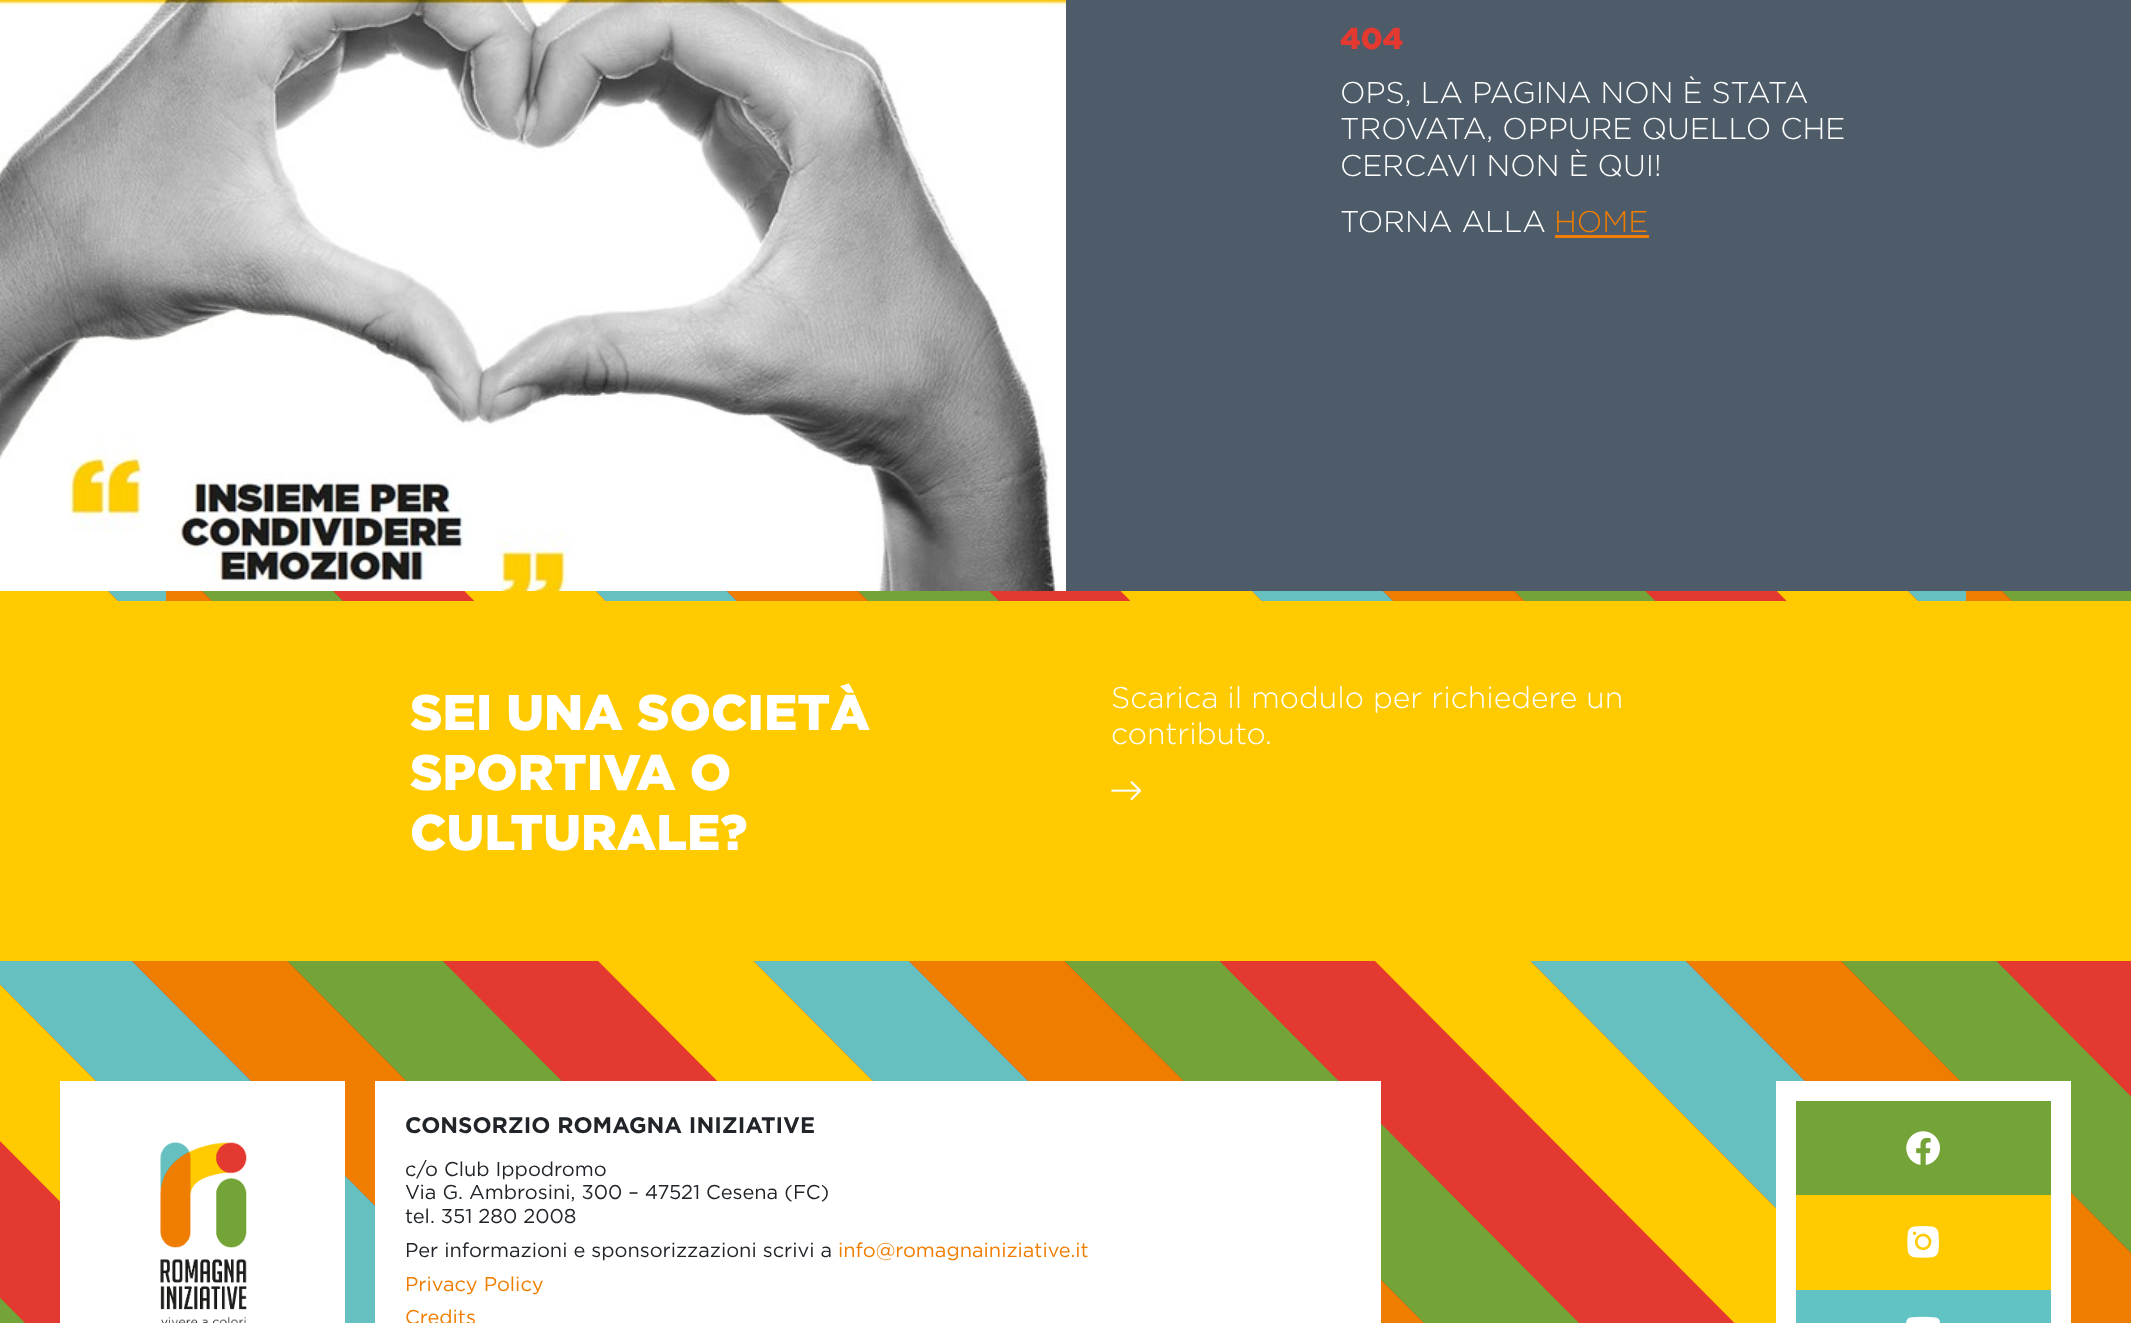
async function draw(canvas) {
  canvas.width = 2131
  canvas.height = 1323
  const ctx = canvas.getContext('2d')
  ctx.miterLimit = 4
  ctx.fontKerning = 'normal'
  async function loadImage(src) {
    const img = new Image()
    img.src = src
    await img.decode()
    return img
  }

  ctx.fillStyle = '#ffcb00'
  ctx.fillRect(0, 0, 2131, 1323)
  ctx.drawImage(await loadImage('image0.png'), 0, 0, 1066, 591)
  ctx.fillStyle = '#4e5c69'
  ctx.fillRect(1066, 0, 1065, 591)
  ctx.font = '900 30px Gotham'
  ctx.fillStyle = '#e43931'
  ctx.fillText('404', 1340, 49)
  ctx.font = '300 30px Gotham'
  ctx.fillStyle = '#fff'
  ctx.fillText('OPS, LA PAGINA NON È STATA', 1340, 103)
  ctx.fillText('TROVATA, OPPURE QUELLO CHE', 1340, 139)
  ctx.fillText('CERCAVI NON È QUI!', 1340, 176)
  ctx.fillText('TORNA ALLA', 1340, 232)
  ctx.fillStyle = '#ef7d00'
  ctx.fillText('HOME', 1554, 232)
  ctx.fillRect(1555, 235, 94, 3)
  ctx.drawImage(await loadImage('image1.png'), 108, 591, 2023, 10)
  ctx.font = '900 50px Gotham'
  ctx.fillStyle = '#fff'
  ctx.fillText('SEI UNA SOCIETÀ', 410, 730)
  ctx.fillText('SPORTIVA O', 410, 790)
  ctx.fillText('CULTURALE?', 410, 850)
  ctx.font = '300 30px Gotham'
  ctx.fillText('Scarica il modulo per richiedere un', 1111, 708)
  ctx.fillText('contributo.', 1111, 744)
  ctx.drawImage(await loadImage('image2.png'), 1111, 781, 30, 19)
  ctx.drawImage(await loadImage('image3.png'), 0, 961, 2131, 362)
  ctx.fillRect(60, 1081, 285, 242)
  ctx.drawImage(await loadImage('image4.png'), 160, 1142, 87, 181)
  ctx.fillRect(375, 1081, 1006, 242)
  ctx.font = 'bold 22.5px Gotham'
  ctx.fillStyle = '#212529'
  ctx.fillText('CONSORZIO ROMAGNA INIZIATIVE', 405, 1133)
  ctx.font = '20px Gotham'
  ctx.fillText('c/o Club Ippodromo', 405, 1176)
  ctx.fillText('Via G. Ambrosini, 300 – 47521 Cesena (FC)', 405, 1199)
  ctx.fillText('tel. 351 280 2008', 405, 1223)
  ctx.fillText('Per informazioni e sponsorizzazioni scrivi a', 405, 1257)
  ctx.fillStyle = '#ef7d00'
  ctx.fillText('info@romagnainiziative.it', 838, 1257)
  ctx.fillText('Privacy Policy', 405, 1291)
  ctx.fillText('Credits', 405, 1324)
  ctx.fillStyle = '#fff'
  ctx.fillRect(1776, 1081, 295, 242)
  ctx.fillStyle = '#74a337'
  ctx.fillRect(1796, 1101, 255, 94)
  ctx.drawImage(await loadImage('image5.png'), 1906, 1131, 34, 34)
  ctx.fillStyle = '#ffcb00'
  ctx.fillRect(1796, 1195, 255, 95)
  ctx.drawImage(await loadImage('image6.png'), 1907, 1226, 32, 32)
  ctx.fillStyle = '#61c3c3'
  ctx.fillRect(1796, 1290, 255, 33)
  ctx.drawImage(await loadImage('image7.png'), 1906, 1316, 34, 7)
}

draw(document.querySelector('canvas'))
